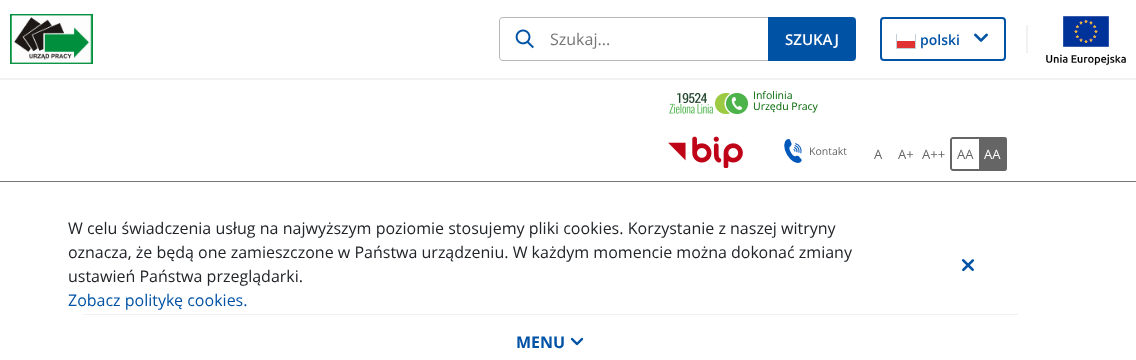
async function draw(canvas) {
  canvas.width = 1136
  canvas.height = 360
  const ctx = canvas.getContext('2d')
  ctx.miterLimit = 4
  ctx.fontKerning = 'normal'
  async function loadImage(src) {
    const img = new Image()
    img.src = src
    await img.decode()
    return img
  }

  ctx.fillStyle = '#fff'
  ctx.fillRect(0, 0, 1136, 360)
  ctx.fillStyle = '#f1f1f1'
  ctx.fillRect(0, 78, 1136, 2)
  ctx.drawImage(await loadImage('image0.png'), 10, 14, 83, 50)
  ctx.drawImage(await loadImage('image1.png'), 515, 29, 19, 20)
  ctx.fillStyle = '#b7b7b7'
  ctx.beginPath()
  ctx.moveTo(503, 17)
  ctx.lineTo(768, 17)
  ctx.lineTo(768, 61)
  ctx.lineTo(503, 61)
  ctx.bezierCurveTo(501, 61, 499, 59, 499, 57)
  ctx.lineTo(499, 21)
  ctx.bezierCurveTo(499, 19, 501, 17, 503, 17)
  ctx.closePath()
  ctx.moveTo(503, 18)
  ctx.lineTo(768, 18)
  ctx.lineTo(768, 60)
  ctx.lineTo(503, 60)
  ctx.bezierCurveTo(501, 60, 500, 59, 500, 57)
  ctx.lineTo(500, 21)
  ctx.bezierCurveTo(500, 19, 501, 18, 503, 18)
  ctx.closePath()
  ctx.fill('evenodd')
  ctx.font = '16px Open Sans'
  ctx.fillStyle = '#767676'
  ctx.fillText('Szukaj...', 550, 45)
  ctx.fillStyle = '#0052a5'
  ctx.beginPath()
  ctx.roundRect(768, 17, 88, 44, [0, 4, 4, 0])
  ctx.fill()
  ctx.font = '600 15px Open Sans'
  ctx.fillStyle = '#fff'
  ctx.fillText('SZUKAJ', 785, 45)
  ctx.beginPath()
  ctx.roundRect(881, 18, 124, 42, 3)
  ctx.strokeStyle = '#0052a5'
  ctx.lineWidth = 2
  ctx.stroke()
  ctx.font = '600 14px Open Sans'
  ctx.fillStyle = '#0052a5'
  ctx.fillText('polski', 920, 45)
  ctx.fillStyle = '#c0cfd8'
  ctx.fillRect(896, 34, 20, 15)
  ctx.fillStyle = '#fff'
  ctx.fillRect(897, 34, 18, 7)
  ctx.fillStyle = '#e03232'
  ctx.fillRect(897, 41, 18, 7)
  ctx.drawImage(await loadImage('image2.png'), 974, 33, 14, 9)
  ctx.fillStyle = '#f1f1f1'
  ctx.fillRect(1026, 25, 2, 28)
  ctx.drawImage(await loadImage('image3.png'), 1046, 16, 80, 49)
  ctx.drawImage(await loadImage('image4.png'), 669, 93, 79, 22)
  ctx.font = '10.5px Open Sans'
  ctx.fillStyle = '#016501'
  ctx.fillText('Infolinia', 753, 99)
  ctx.fillText('Urzędu Pracy', 753, 110)
  ctx.drawImage(await loadImage('image5.png'), 668, 136, 75, 32)
  ctx.drawImage(await loadImage('image6.png'), 784, 139, 18, 24)
  ctx.fillStyle = '#656565'
  ctx.fillText('Kontakt', 809, 155)
  ctx.font = '13px Open Sans'
  ctx.fillText('A', 874, 159)
  ctx.fillText('A+', 898, 159)
  ctx.fillText('A++', 922, 159)
  ctx.beginPath()
  ctx.moveTo(953, 137)
  ctx.lineTo(979, 137)
  ctx.lineTo(979, 171)
  ctx.lineTo(953, 171)
  ctx.bezierCurveTo(951.5, 171, 950, 169.5, 950, 168)
  ctx.lineTo(950, 140)
  ctx.bezierCurveTo(950, 138.5, 951.5, 137, 953, 137)
  ctx.closePath()
  ctx.moveTo(953, 139)
  ctx.lineTo(979, 139)
  ctx.lineTo(979, 169)
  ctx.lineTo(953, 169)
  ctx.bezierCurveTo(952.5, 169, 952, 168.5, 952, 168)
  ctx.lineTo(952, 140)
  ctx.bezierCurveTo(952, 139.5, 952.5, 139, 953, 139)
  ctx.closePath()
  ctx.fill('evenodd')
  ctx.fillText('AA', 957, 159)
  ctx.beginPath()
  ctx.roundRect(979, 137, 28, 34, [0, 3, 3, 0])
  ctx.fill()
  ctx.beginPath()
  ctx.moveTo(979, 137)
  ctx.lineTo(1004, 137)
  ctx.bezierCurveTo(1005.5, 137, 1007, 138.5, 1007, 140)
  ctx.lineTo(1007, 168)
  ctx.bezierCurveTo(1007, 169.5, 1005.5, 171, 1004, 171)
  ctx.lineTo(979, 171)
  ctx.closePath()
  ctx.moveTo(979, 139)
  ctx.lineTo(1004, 139)
  ctx.bezierCurveTo(1004.5, 139, 1005, 139.5, 1005, 140)
  ctx.lineTo(1005, 168)
  ctx.bezierCurveTo(1005, 168.5, 1004.5, 169, 1004, 169)
  ctx.lineTo(979, 169)
  ctx.closePath()
  ctx.fill('evenodd')
  ctx.fillStyle = '#fff'
  ctx.fillText('AA', 984, 159)
  ctx.fillStyle = '#f1f1f1'
  ctx.fillRect(83, 314, 935, 1)
  ctx.font = 'bold 16px Open Sans'
  ctx.fillStyle = '#0052a5'
  ctx.fillText('MENU', 516, 348)
  ctx.drawImage(await loadImage('image7.png'), 570, 337, 14, 9)
  ctx.fillStyle = '#767676'
  ctx.fillRect(0, 181, 1136, 1)
  ctx.font = '16px Open Sans'
  ctx.fillStyle = '#212529'
  ctx.fillText('W celu świadczenia usług na najwyższym poziomie stosujemy pliki cookies. Korzystanie z naszej witryny', 68, 234)
  ctx.fillText('oznacza, że będą one zamieszczone w Państwa urządzeniu. W każdym momencie można dokonać zmiany', 68, 258)
  ctx.fillText('ustawień Państwa przeglądarki.', 68, 282)
  ctx.fillStyle = '#0052a5'
  ctx.fillText('Zobacz politykę cookies.', 68, 306)
  ctx.drawImage(await loadImage('image8.png'), 962, 259, 12, 13)
}

draw(document.querySelector('canvas'))
